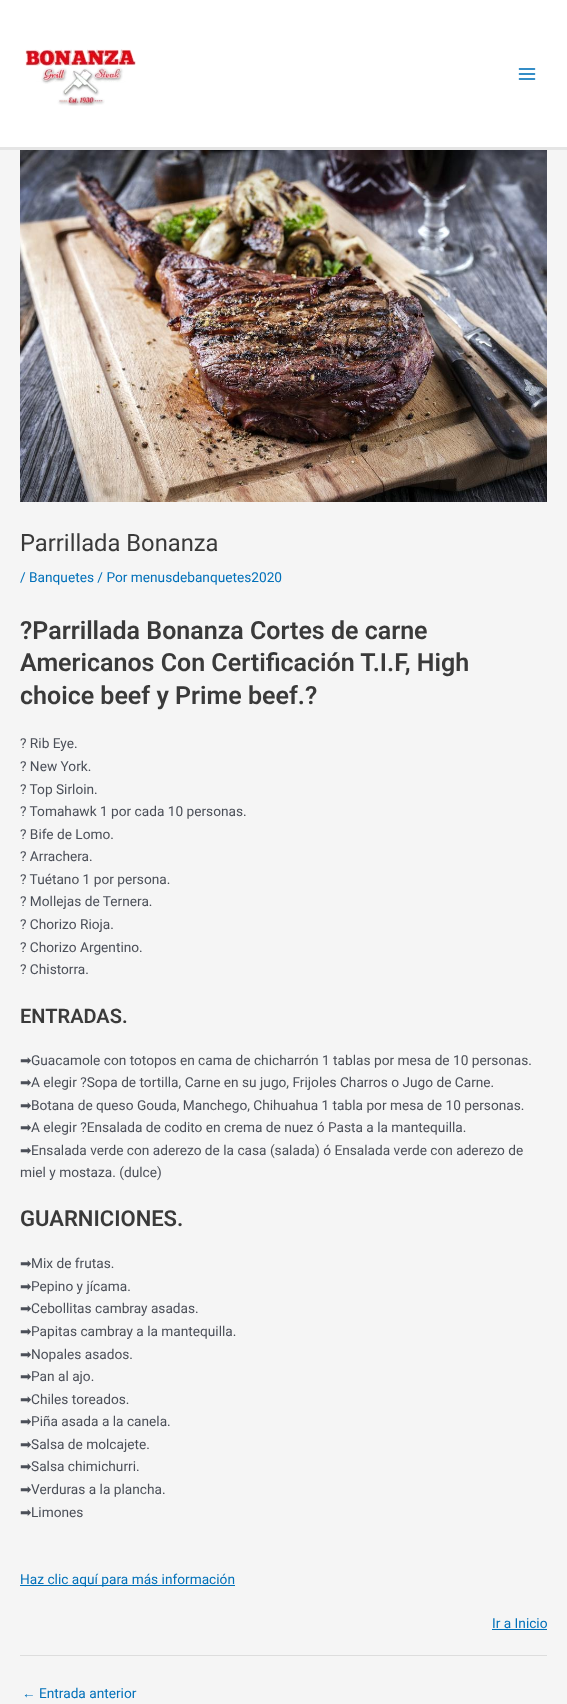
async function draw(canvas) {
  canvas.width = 567
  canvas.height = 1704
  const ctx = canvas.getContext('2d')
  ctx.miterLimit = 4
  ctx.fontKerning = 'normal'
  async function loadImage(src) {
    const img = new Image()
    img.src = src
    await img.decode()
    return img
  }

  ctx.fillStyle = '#f5f5f5'
  ctx.fillRect(0, 0, 567, 1704)
  ctx.fillStyle = '#fff'
  ctx.fillRect(0, 0, 567, 147)
  ctx.fillStyle = '#e5e5e5'
  ctx.fillRect(0, 147, 567, 3)
  ctx.drawImage(await loadImage('image0.png'), 25, 49, 111, 57)
  ctx.drawImage(await loadImage('image1.png'), 518, 68, 18, 12)
  ctx.drawImage(await loadImage('image2.png'), 20, 150, 527, 352)
  ctx.font = '23.75px Roboto'
  ctx.fillStyle = '#3a3a3a'
  ctx.fillText('Parrillada Bonanza', 20, 551)
  ctx.font = '13.7px Roboto'
  ctx.fillStyle = '#0170b9'
  ctx.fillText('/ Banquetes / Por menusdebanquetes2020', 20, 582)
  ctx.font = '600 25px Roboto'
  ctx.fillStyle = '#3a3a3a'
  ctx.fillText('?️Parrillada Bonanza Cortes de carne', 20, 639)
  ctx.fillText('Americanos Con Certificación T.I.F, High', 20, 671)
  ctx.fillText('choice beef y Prime beef.?', 20, 704)
  ctx.font = '13.7px Roboto'
  ctx.fillStyle = '#4b4f58'
  ctx.fillText('? Rib Eye.', 20, 748)
  ctx.fillText('? New York.', 20, 771)
  ctx.fillText('? Top Sirloin.', 20, 794)
  ctx.fillText('? Tomahawk 1 por cada 10 personas.', 20, 816)
  ctx.fillText('? Bife de Lomo.', 20, 839)
  ctx.fillText('? Arrachera.', 20, 861)
  ctx.fillText('? Tuétano 1 por persona.', 20, 884)
  ctx.fillText('? Mollejas de Ternera.', 20, 906)
  ctx.fillText('? Chorizo Rioja.', 20, 929)
  ctx.fillText('? Chorizo Argentino.', 20, 952)
  ctx.fillText('? Chistorra.', 20, 974)
  ctx.font = '600 20px Roboto'
  ctx.fillStyle = '#3a3a3a'
  ctx.fillText('ENTRADAS.', 20, 1023)
  ctx.font = '13.7px DejaVu Sans'
  ctx.fillStyle = '#4b4f58'
  ctx.fillText('➡', 20, 1065)
  ctx.font = '13.7px Roboto'
  ctx.fillText('Guacamole con totopos en cama de chicharrón 1 tablas por mesa de 10 personas.', 31, 1065)
  ctx.font = '13.7px DejaVu Sans'
  ctx.fillText('➡', 20, 1087)
  ctx.font = '13.7px Roboto'
  ctx.fillText('A elegir ?Sopa de tortilla, Carne en su jugo, Frijoles Charros o Jugo de Carne.', 31, 1087)
  ctx.font = '13.7px DejaVu Sans'
  ctx.fillText('➡', 20, 1110)
  ctx.font = '13.7px Roboto'
  ctx.fillText('Botana de queso Gouda, Manchego, Chihuahua 1 tabla por mesa de 10 personas.', 31, 1110)
  ctx.font = '13.7px DejaVu Sans'
  ctx.fillText('➡', 20, 1132)
  ctx.font = '13.7px Roboto'
  ctx.fillText('A elegir ?Ensalada de codito en crema de nuez ó Pasta a la mantequilla.', 31, 1132)
  ctx.font = '13.7px DejaVu Sans'
  ctx.fillText('➡', 20, 1155)
  ctx.font = '13.7px Roboto'
  ctx.fillText('Ensalada verde con aderezo de la casa (salada) ó Ensalada verde con aderezo de', 31, 1155)
  ctx.fillText('miel y mostaza. (dulce)', 20, 1177)
  ctx.font = '600 22px Roboto'
  ctx.fillStyle = '#3a3a3a'
  ctx.fillText('GUARNICIONES.', 20, 1226)
  ctx.font = '13.7px DejaVu Sans'
  ctx.fillStyle = '#4b4f58'
  ctx.fillText('➡', 20, 1268)
  ctx.font = '13.7px Roboto'
  ctx.fillText('Mix de frutas.', 31, 1268)
  ctx.font = '13.7px DejaVu Sans'
  ctx.fillText('➡', 20, 1291)
  ctx.font = '13.7px Roboto'
  ctx.fillText('Pepino y jícama.', 31, 1291)
  ctx.font = '13.7px DejaVu Sans'
  ctx.fillText('➡', 20, 1313)
  ctx.font = '13.7px Roboto'
  ctx.fillText('Cebollitas cambray asadas.', 31, 1313)
  ctx.font = '13.7px DejaVu Sans'
  ctx.fillText('➡', 20, 1336)
  ctx.font = '13.7px Roboto'
  ctx.fillText('Papitas cambray a la mantequilla.', 31, 1336)
  ctx.font = '13.7px DejaVu Sans'
  ctx.fillText('➡', 20, 1359)
  ctx.font = '13.7px Roboto'
  ctx.fillText('Nopales asados.', 31, 1359)
  ctx.font = '13.7px DejaVu Sans'
  ctx.fillText('➡', 20, 1381)
  ctx.font = '13.7px Roboto'
  ctx.fillText('Pan al ajo.', 31, 1381)
  ctx.font = '13.7px DejaVu Sans'
  ctx.fillText('➡', 20, 1404)
  ctx.font = '13.7px Roboto'
  ctx.fillText('Chiles toreados.', 31, 1404)
  ctx.font = '13.7px DejaVu Sans'
  ctx.fillText('➡', 20, 1426)
  ctx.font = '13.7px Roboto'
  ctx.fillText('Piña asada a la canela.', 31, 1426)
  ctx.font = '13.7px DejaVu Sans'
  ctx.fillText('➡', 20, 1449)
  ctx.font = '13.7px Roboto'
  ctx.fillText('Salsa de molcajete.', 31, 1449)
  ctx.font = '13.7px DejaVu Sans'
  ctx.fillText('➡', 20, 1471)
  ctx.font = '13.7px Roboto'
  ctx.fillText('Salsa chimichurri.', 31, 1471)
  ctx.font = '13.7px DejaVu Sans'
  ctx.fillText('➡', 20, 1494)
  ctx.font = '13.7px Roboto'
  ctx.fillText('Verduras a la plancha.', 31, 1494)
  ctx.font = '13.7px DejaVu Sans'
  ctx.fillText('➡', 20, 1517)
  ctx.font = '13.7px Roboto'
  ctx.fillText('Limones', 31, 1517)
  ctx.fillStyle = '#0170b9'
  ctx.fillRect(20, 1585, 215, 1)
  ctx.fillText('Haz clic aquí para más información', 20, 1584)
  ctx.fillText('Ir a Inicio', 492, 1628)
  ctx.fillRect(492, 1629, 55, 1)
  ctx.fillStyle = '#ddd'
  ctx.fillRect(20, 1655, 527, 1)
  ctx.font = '13.7px Liberation Sans'
  ctx.fillStyle = '#0170b9'
  ctx.fillText('←', 22, 1698)
  ctx.font = '13.7px Roboto'
  ctx.fillText('Entrada anterior', 39, 1698)
}

draw(document.querySelector('canvas'))
